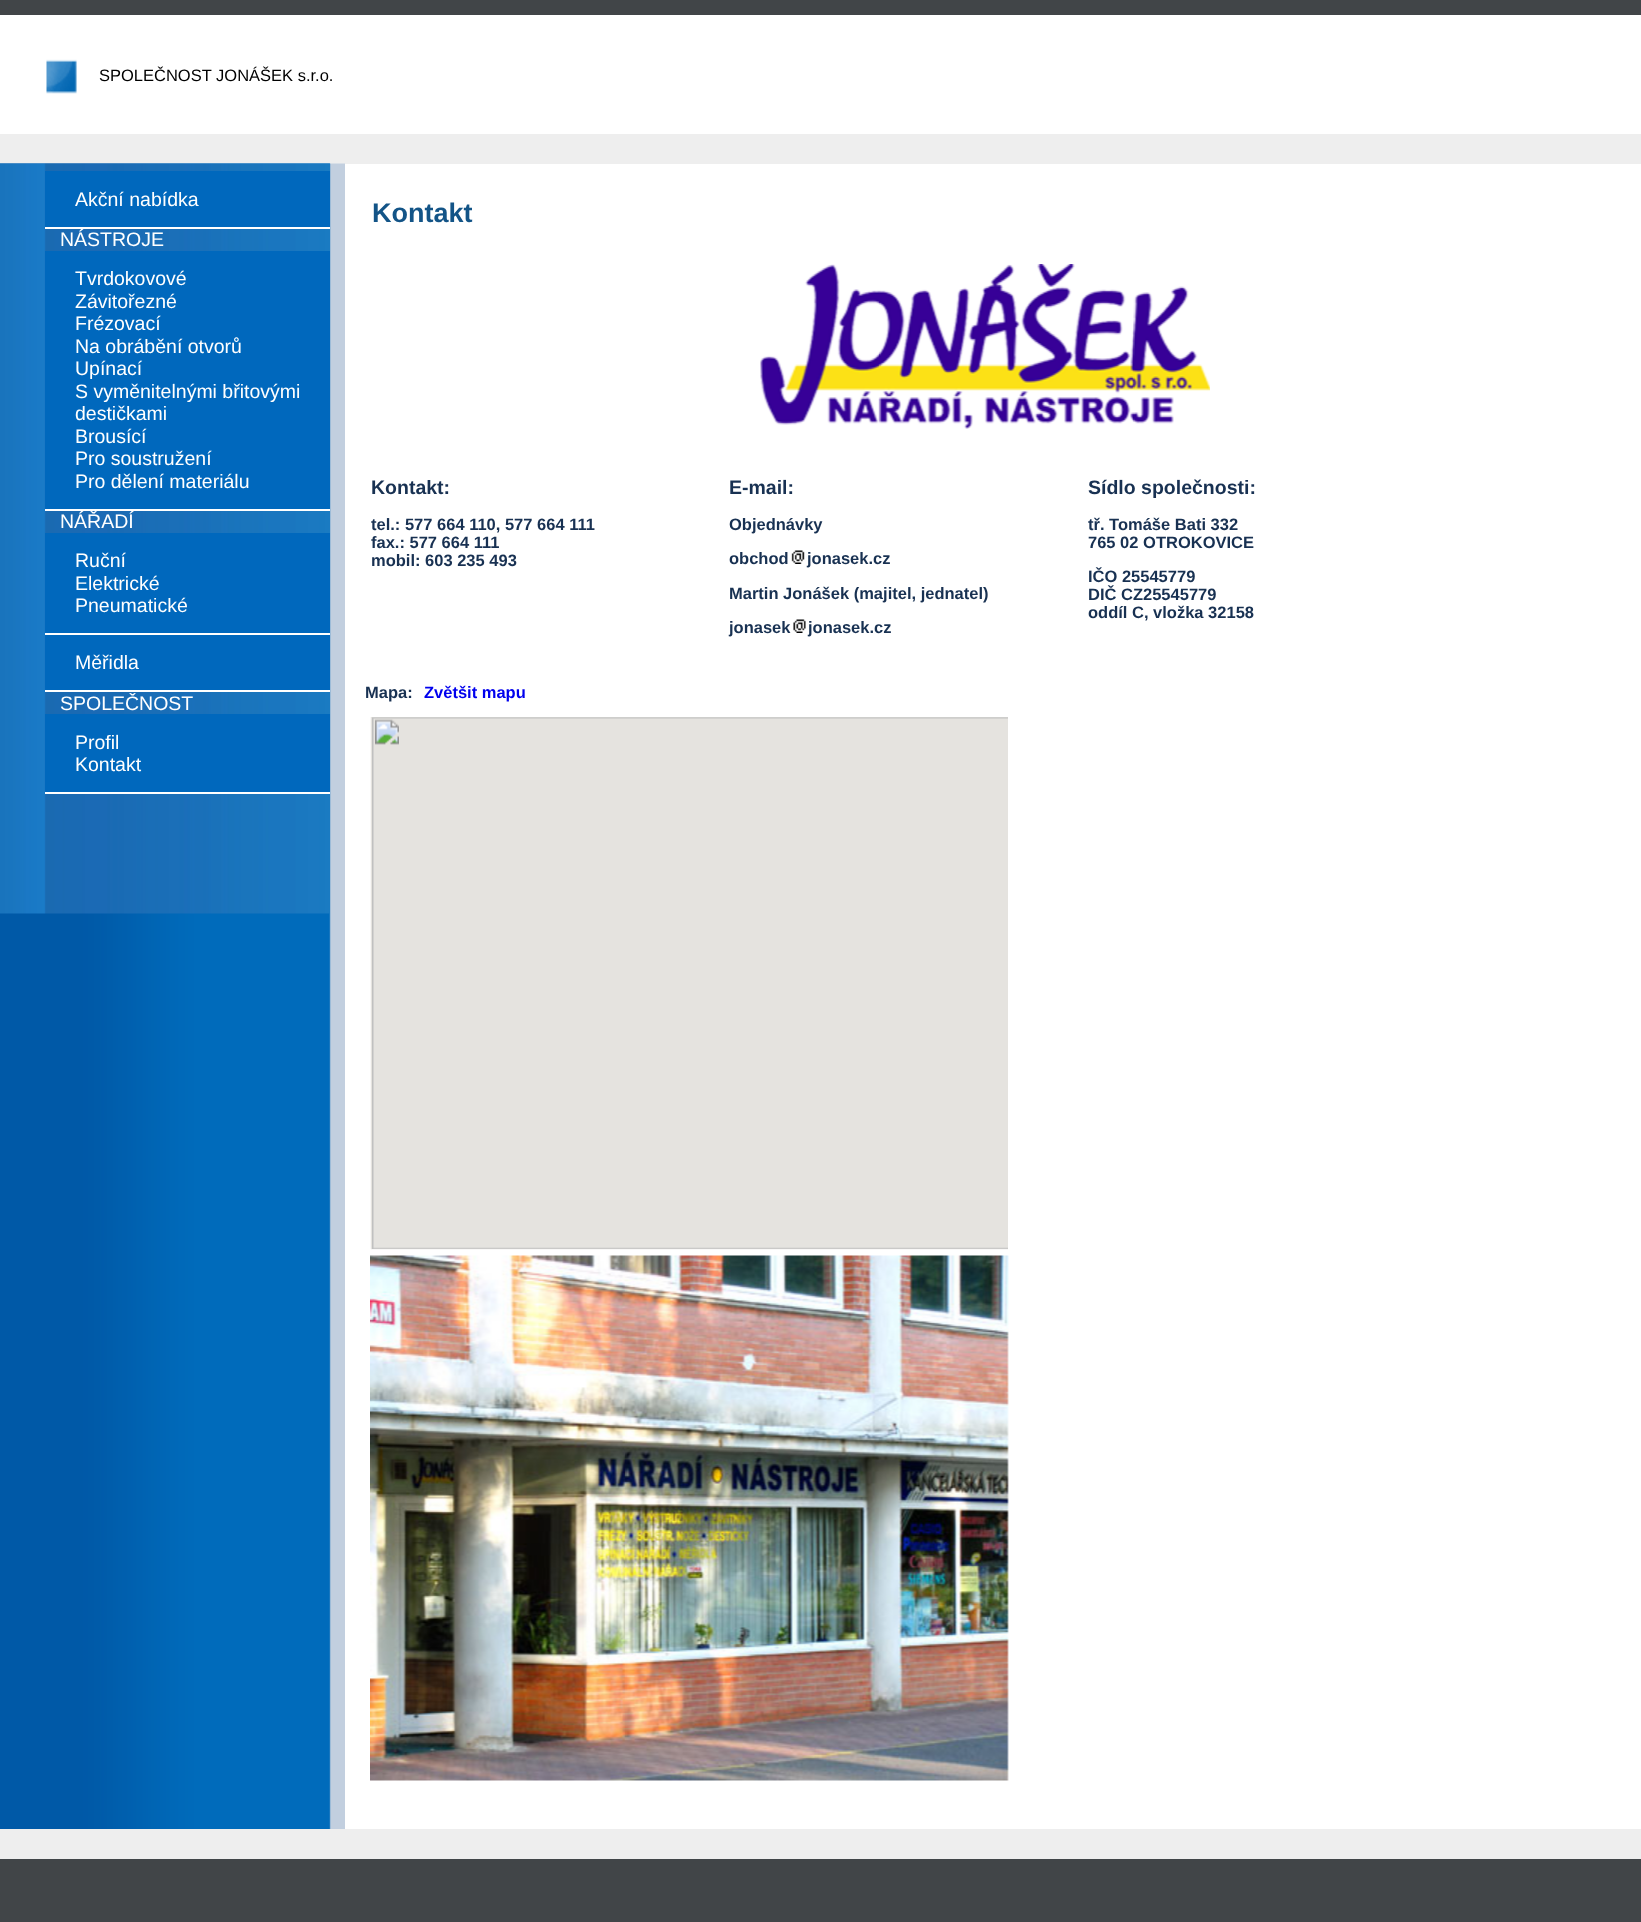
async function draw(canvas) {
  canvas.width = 1641
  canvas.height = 1922
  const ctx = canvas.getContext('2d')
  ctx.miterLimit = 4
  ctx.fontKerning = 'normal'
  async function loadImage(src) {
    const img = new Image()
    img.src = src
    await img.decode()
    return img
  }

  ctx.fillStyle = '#414548'
  ctx.fillRect(0, 0, 1641, 1922)
  ctx.fillStyle = '#fff'
  ctx.fillRect(0, 15, 1641, 1814)
  ctx.drawImage(await loadImage('image0.png'), 46, 59, 31, 35)
  ctx.font = '16.5px Liberation Sans'
  ctx.fillStyle = '#000'
  ctx.fillText('SPOLEČNOST JONÁŠEK s.r.o.', 99, 81)
  ctx.fillStyle = '#eee'
  ctx.fillRect(0, 134, 1641, 30)
  ctx.drawImage(await loadImage('image1.png'), 0, 163, 345, 1666)
  ctx.drawImage(await loadImage('image2.png'), 0, 163, 330, 751)
  ctx.fillStyle = '#0068bd'
  ctx.fillRect(45, 171, 285, 56)
  ctx.fillStyle = '#fff'
  ctx.fillRect(45, 227, 285, 2)
  ctx.font = '19.5px Liberation Sans'
  ctx.fillText('Akční nabídka', 75, 206)
  ctx.fillText('NÁSTROJE', 60, 246)
  ctx.fillStyle = '#0068bd'
  ctx.fillRect(45, 251, 285, 258)
  ctx.fillStyle = '#fff'
  ctx.fillRect(45, 509, 285, 2)
  ctx.fillText('Tvrdokovové', 75, 285)
  ctx.fillText('Závitořezné', 75, 308)
  ctx.fillText('Frézovací', 75, 330)
  ctx.fillText('Na obrábění otvorů', 75, 353)
  ctx.fillText('Upínací', 75, 375)
  ctx.fillText('S vyměnitelnými břitovými', 75, 398)
  ctx.fillText('destičkami', 75, 420)
  ctx.fillText('Brousící', 75, 443)
  ctx.fillText('Pro soustružení', 75, 465)
  ctx.fillText('Pro dělení materiálu', 75, 488)
  ctx.fillText('NÁŘADÍ', 60, 528)
  ctx.fillStyle = '#0068bd'
  ctx.fillRect(45, 533, 285, 100)
  ctx.fillStyle = '#fff'
  ctx.fillRect(45, 633, 285, 2)
  ctx.fillText('Ruční', 75, 567)
  ctx.fillText('Elektrické', 75, 590)
  ctx.fillText('Pneumatické', 75, 612)
  ctx.fillStyle = '#0068bd'
  ctx.fillRect(45, 635, 285, 55)
  ctx.fillStyle = '#fff'
  ctx.fillRect(45, 690, 285, 2)
  ctx.fillText('Měřidla', 75, 669)
  ctx.fillText('SPOLEČNOST', 60, 710)
  ctx.fillStyle = '#0068bd'
  ctx.fillRect(45, 714, 285, 78)
  ctx.fillStyle = '#fff'
  ctx.fillRect(45, 792, 285, 2)
  ctx.fillText('Profil', 75, 749)
  ctx.fillText('Kontakt', 75, 771)
  ctx.font = 'bold 27px Liberation Sans'
  ctx.fillStyle = '#135487'
  ctx.fillText('Kontakt', 372, 222)
  ctx.drawImage(await loadImage('image3.png'), 760, 264, 450, 165)
  ctx.font = 'bold 19.5px Liberation Sans'
  ctx.fillStyle = '#183152'
  ctx.fillText('Kontakt:', 371, 494)
  ctx.font = 'bold 16.5px Liberation Sans'
  ctx.fillText('tel.: 577 664 110, 577 664 111', 371, 530)
  ctx.fillText('fax.: 577 664 111', 371, 548)
  ctx.fillText('mobil: 603 235 493', 371, 566)
  ctx.font = 'bold 19.5px Liberation Sans'
  ctx.fillText('E-mail:', 729, 494)
  ctx.font = 'bold 16.5px Liberation Sans'
  ctx.fillText('Objednávky', 729, 530)
  ctx.fillText('obchod', 729, 564)
  ctx.drawImage(await loadImage('image4.png'), 791, 550, 14, 14)
  ctx.fillText('jonasek.cz', 807, 564)
  ctx.fillText('Martin Jonášek (majitel, jednatel)', 729, 599)
  ctx.fillText('jonasek', 729, 633)
  ctx.drawImage(await loadImage('image5.png'), 793, 619, 13, 14)
  ctx.fillText('jonasek.cz', 808, 633)
  ctx.font = 'bold 19.5px Liberation Sans'
  ctx.fillText('Sídlo společnosti:', 1088, 494)
  ctx.font = 'bold 16.5px Liberation Sans'
  ctx.fillText('tř. Tomáše Bati 332', 1088, 530)
  ctx.fillText('765 02 OTROKOVICE', 1088, 548)
  ctx.fillText('IČO 25545779', 1088, 582)
  ctx.fillText('DIČ CZ25545779', 1088, 600)
  ctx.fillText('oddíl C, vložka 32158', 1088, 618)
  ctx.fillText('Mapa:', 365, 698)
  ctx.fillStyle = '#00e'
  ctx.fillText('Zvětšit mapu', 424, 698)
  ctx.drawImage(await loadImage('image6.png'), 370, 717, 638, 533)
  ctx.drawImage(await loadImage('image7.png'), 370, 1255, 639, 526)
  ctx.fillStyle = '#eee'
  ctx.fillRect(0, 1829, 1641, 30)
}

draw(document.querySelector('canvas'))
